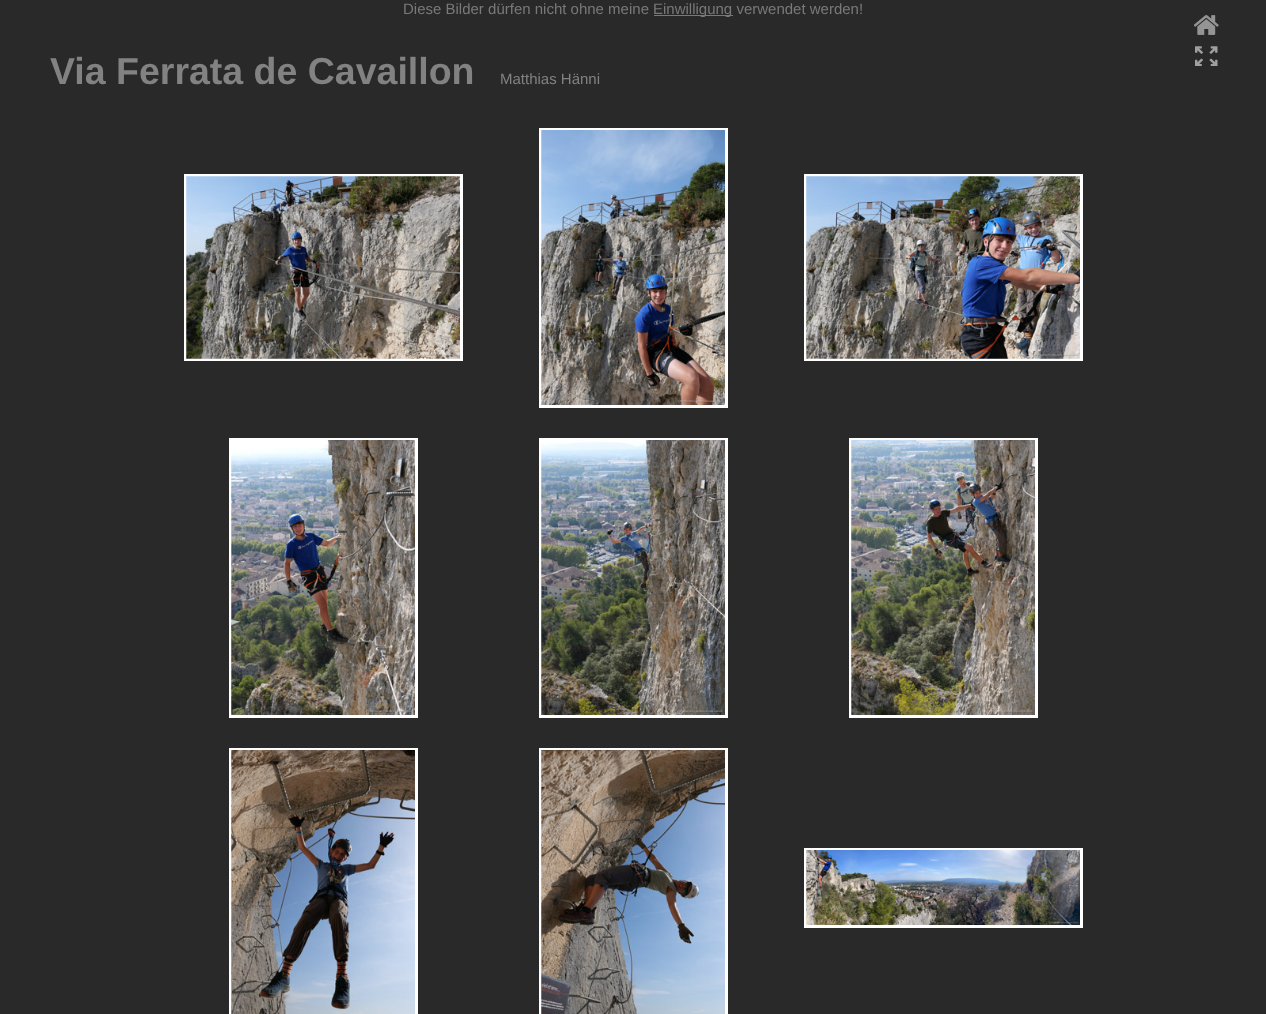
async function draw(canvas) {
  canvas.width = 1266
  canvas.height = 1014
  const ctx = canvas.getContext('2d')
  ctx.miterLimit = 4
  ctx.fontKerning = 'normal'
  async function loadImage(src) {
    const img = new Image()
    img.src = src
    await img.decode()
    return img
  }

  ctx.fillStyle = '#292929'
  ctx.fillRect(0, 0, 1266, 1014)
  ctx.font = '15px Liberation Sans'
  ctx.fillStyle = '#797979'
  ctx.fillText('Diese Bilder dürfen nicht ohne meine', 403, 14)
  ctx.fillRect(654, 15, 79, 1)
  ctx.fillText('Einwilligung verwendet werden!', 653, 14)
  ctx.drawImage(await loadImage('image0.png'), 1194, 15, 25, 20)
  ctx.font = 'bold 37.5px Liberation Sans'
  ctx.fillStyle = '#828282'
  ctx.fillText('Via Ferrata de Cavaillon', 50, 84)
  ctx.font = '15px Liberation Sans'
  ctx.fillText('Matthias Hänni', 500, 84)
  ctx.drawImage(await loadImage('image1.png'), 1195, 46, 23, 20)
  ctx.strokeStyle = '#fff'
  ctx.lineWidth = 3
  ctx.strokeRect(185.5, 175.5, 276, 184)
  ctx.drawImage(await loadImage('image2.png'), 186, 176, 274, 183)
  ctx.strokeRect(540.5, 129.5, 186, 277)
  ctx.drawImage(await loadImage('image3.png'), 541, 130, 184, 275)
  ctx.strokeRect(805.5, 175.5, 276, 184)
  ctx.drawImage(await loadImage('image4.png'), 806, 176, 274, 183)
  ctx.strokeRect(230.5, 439.5, 186, 277)
  ctx.drawImage(await loadImage('image5.png'), 231, 440, 184, 275)
  ctx.strokeRect(540.5, 439.5, 186, 277)
  ctx.drawImage(await loadImage('image6.png'), 541, 440, 184, 275)
  ctx.strokeRect(850.5, 439.5, 186, 277)
  ctx.drawImage(await loadImage('image7.png'), 851, 440, 184, 275)
  ctx.strokeRect(230.5, 749.5, 186, 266)
  ctx.drawImage(await loadImage('image8.png'), 231, 750, 184, 264)
  ctx.strokeRect(540.5, 749.5, 186, 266)
  ctx.drawImage(await loadImage('image9.png'), 541, 750, 184, 264)
  ctx.strokeRect(805.5, 849.5, 276, 77)
  ctx.drawImage(await loadImage('image10.png'), 806, 850, 274, 75)
}

draw(document.querySelector('canvas'))
